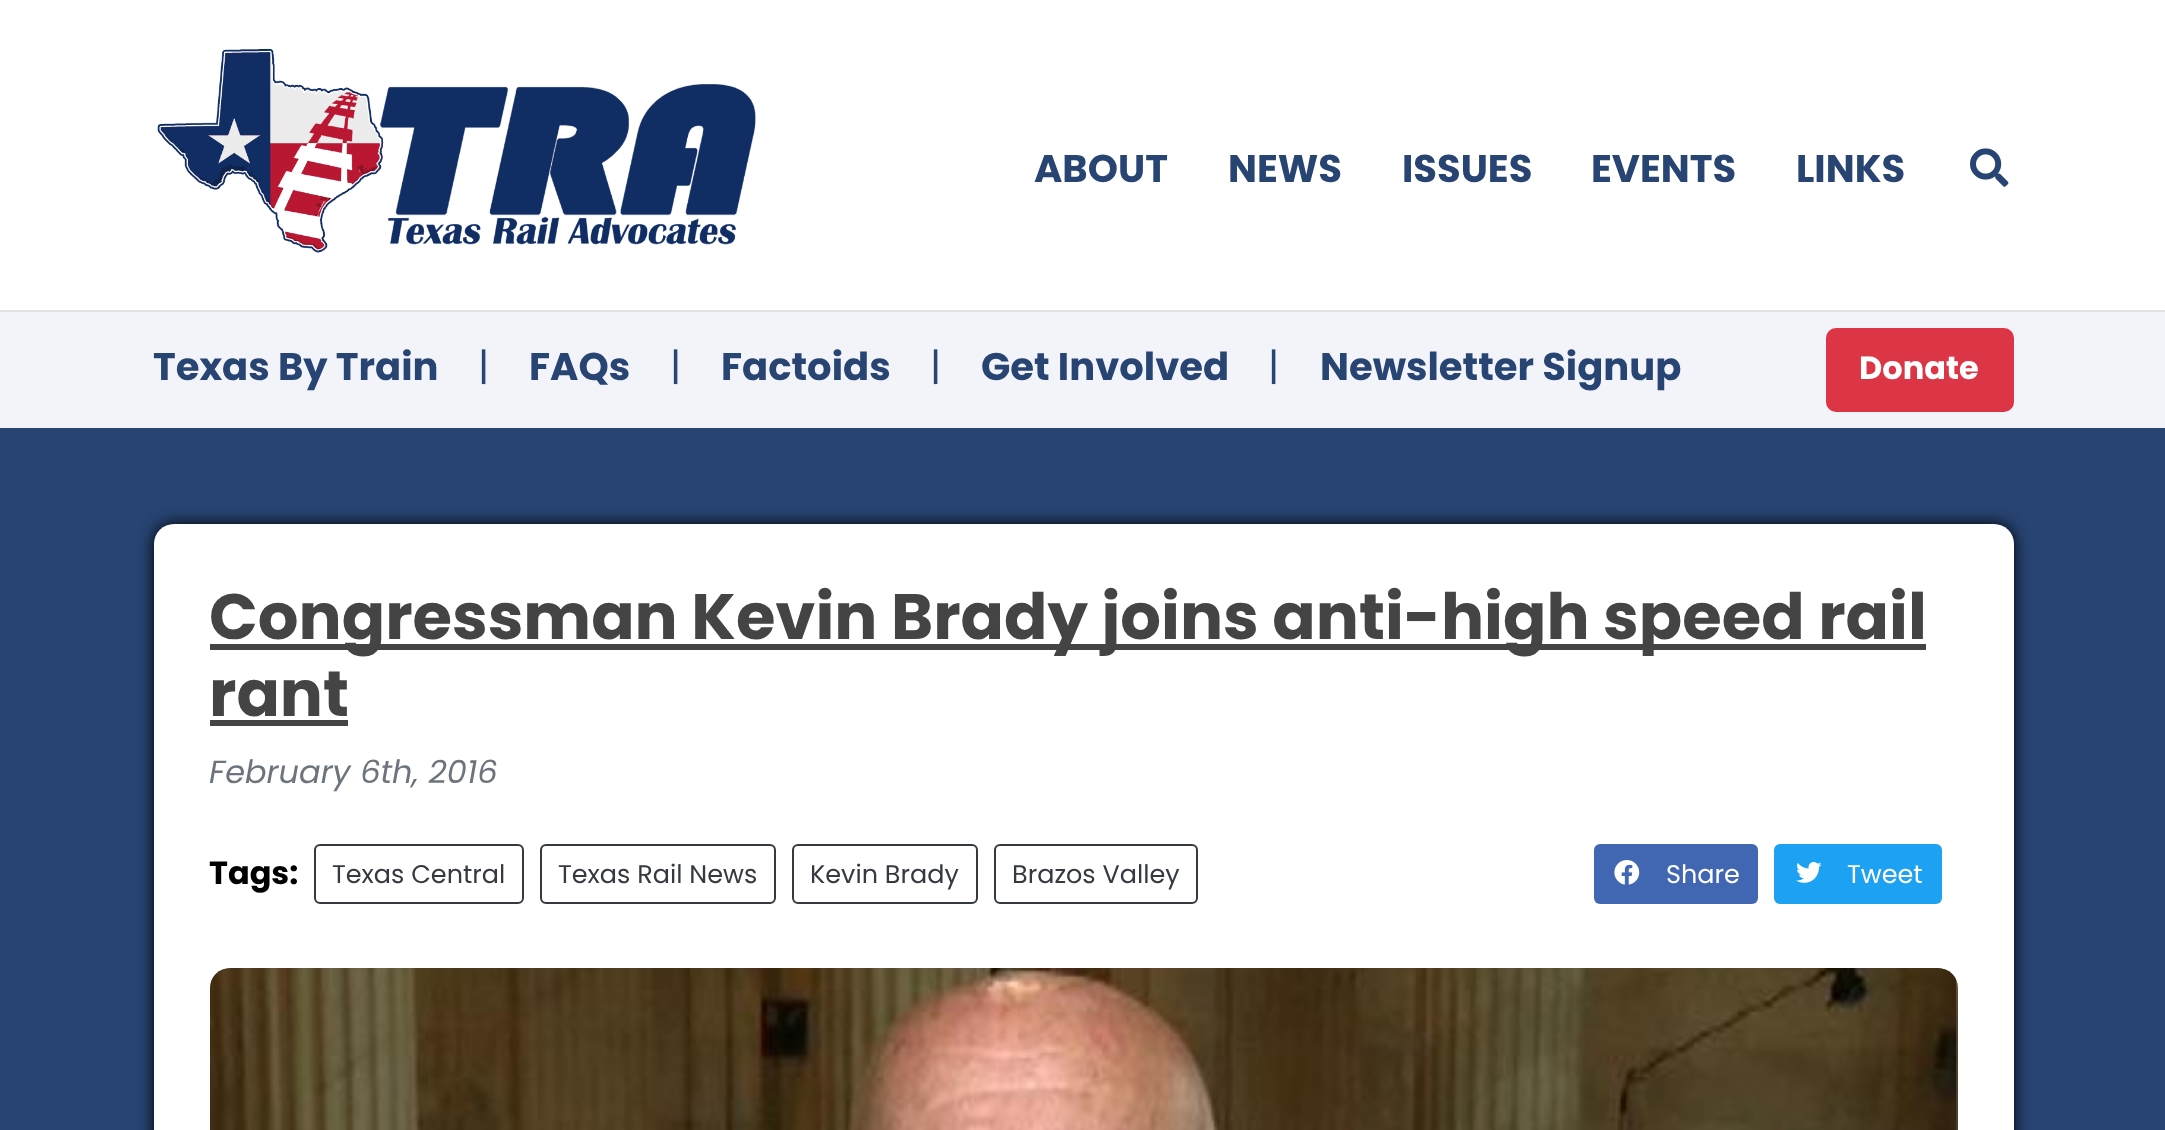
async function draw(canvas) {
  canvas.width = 2165
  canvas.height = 1130
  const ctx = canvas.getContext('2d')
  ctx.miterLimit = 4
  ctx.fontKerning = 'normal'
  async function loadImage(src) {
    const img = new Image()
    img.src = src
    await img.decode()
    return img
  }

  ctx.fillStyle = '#274472'
  ctx.fillRect(0, 0, 2165, 1130)
  ctx.fillStyle = '#fff'
  ctx.fillRect(0, 0, 2165, 310)
  ctx.drawImage(await loadImage('image0.png'), 157, 48, 599, 205)
  ctx.font = 'bold 38.5px Poppins'
  ctx.fillStyle = '#274472'
  ctx.fillText('ABOUT', 1034, 182)
  ctx.fillText('NEWS', 1228, 182)
  ctx.fillText('ISSUES', 1402, 182)
  ctx.fillText('EVENTS', 1591, 182)
  ctx.fillText('LINKS', 1796, 182)
  ctx.drawImage(await loadImage('image1.png'), 1970, 148, 39, 39)
  ctx.fillStyle = '#f2f4f9'
  ctx.fillRect(0, 312, 2165, 116)
  ctx.fillStyle = '#e0e2e6'
  ctx.fillRect(0, 310, 2165, 2)
  ctx.fillStyle = '#274472'
  ctx.fillText('Texas By Train', 153, 380)
  ctx.font = '38.5px Poppins'
  ctx.fillText('|', 478, 380)
  ctx.font = 'bold 38.5px Poppins'
  ctx.fillText('FAQs', 529, 380)
  ctx.font = '38.5px Poppins'
  ctx.fillText('|', 670, 380)
  ctx.font = 'bold 38.5px Poppins'
  ctx.fillText('Factoids', 721, 380)
  ctx.font = '38.5px Poppins'
  ctx.fillText('|', 930, 380)
  ctx.font = 'bold 38.5px Poppins'
  ctx.fillText('Get Involved', 981, 380)
  ctx.font = '38.5px Poppins'
  ctx.fillText('|', 1268, 380)
  ctx.font = 'bold 38.5px Poppins'
  ctx.fillText('Newsletter Signup', 1320, 380)
  ctx.fillStyle = '#dc3545'
  ctx.beginPath()
  ctx.roundRect(1827, 329, 186, 82, 9)
  ctx.fill()
  ctx.strokeStyle = '#dc3545'
  ctx.lineWidth = 2
  ctx.stroke()
  ctx.font = 'bold 32px Poppins'
  ctx.fillStyle = '#fff'
  ctx.fillText('Donate', 1859, 379)
  ctx.fillStyle = '#000'
  ctx.filter = 'blur(8px)'
  ctx.beginPath()
  ctx.roundRect(154, 524, 1860, 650, 20)
  ctx.fill()
  ctx.filter = 'none'
  ctx.fillStyle = '#fff'
  ctx.beginPath()
  ctx.roundRect(154, 524, 1860, 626, 20)
  ctx.fill()
  ctx.fillStyle = '#444'
  ctx.fillRect(210, 644, 1716, 6)
  ctx.font = 'bold 64px Poppins'
  ctx.fillText('Congressman Kevin Brady joins anti-high speed rail', 209, 639)
  ctx.fillText('rant', 209, 716)
  ctx.fillRect(210, 720, 138, 6)
  ctx.font = 'italic 32px Poppins'
  ctx.fillStyle = '#6c757d'
  ctx.fillText('February 6th, 2016', 209, 783)
  ctx.font = 'bold 32px Poppins'
  ctx.fillStyle = '#000'
  ctx.fillText('Tags:', 209, 884)
  ctx.beginPath()
  ctx.roundRect(315, 845, 208, 58, 5)
  ctx.strokeStyle = '#343a40'
  ctx.stroke()
  ctx.font = '25.5px Poppins'
  ctx.fillStyle = '#343a40'
  ctx.fillText('Texas Central', 332, 883)
  ctx.beginPath()
  ctx.roundRect(541, 845, 234, 58, 5)
  ctx.stroke()
  ctx.fillText('Texas Rail News', 558, 883)
  ctx.beginPath()
  ctx.roundRect(793, 845, 184, 58, 5)
  ctx.stroke()
  ctx.fillText('Kevin Brady', 810, 883)
  ctx.beginPath()
  ctx.roundRect(995, 845, 202, 58, 5)
  ctx.stroke()
  ctx.fillText('Brazos Valley', 1012, 883)
  ctx.fillStyle = '#4267b2'
  ctx.beginPath()
  ctx.roundRect(1594, 844, 164, 60, 6)
  ctx.fill()
  ctx.drawImage(await loadImage('image2.png'), 1614, 860, 26, 25)
  ctx.fillStyle = '#fff'
  ctx.fillText('Share', 1666, 883)
  ctx.fillStyle = '#1da1f2'
  ctx.beginPath()
  ctx.roundRect(1774, 844, 168, 60, 6)
  ctx.fill()
  ctx.drawImage(await loadImage('image3.png'), 1796, 862, 26, 21)
  ctx.fillStyle = '#fff'
  ctx.fillText('Tweet', 1847, 883)
  ctx.save()
  ctx.beginPath()
  ctx.roundRect(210, 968, 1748, 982, 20)
  ctx.clip()
  ctx.fillStyle = '#f0f0f0'
  ctx.filter = 'blur(52px)'
  ctx.beginPath()
  ctx.roundRect(122, 918, 1922, 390, 22)
  ctx.fill()
  ctx.filter = 'none'
  ctx.restore()
  ctx.drawImage(await loadImage('image4.png'), 210, 968, 1748, 162)
  ctx.drawImage(await loadImage('image5.png'), 210, 968, 1746, 162)
}

draw(document.querySelector('canvas'))
